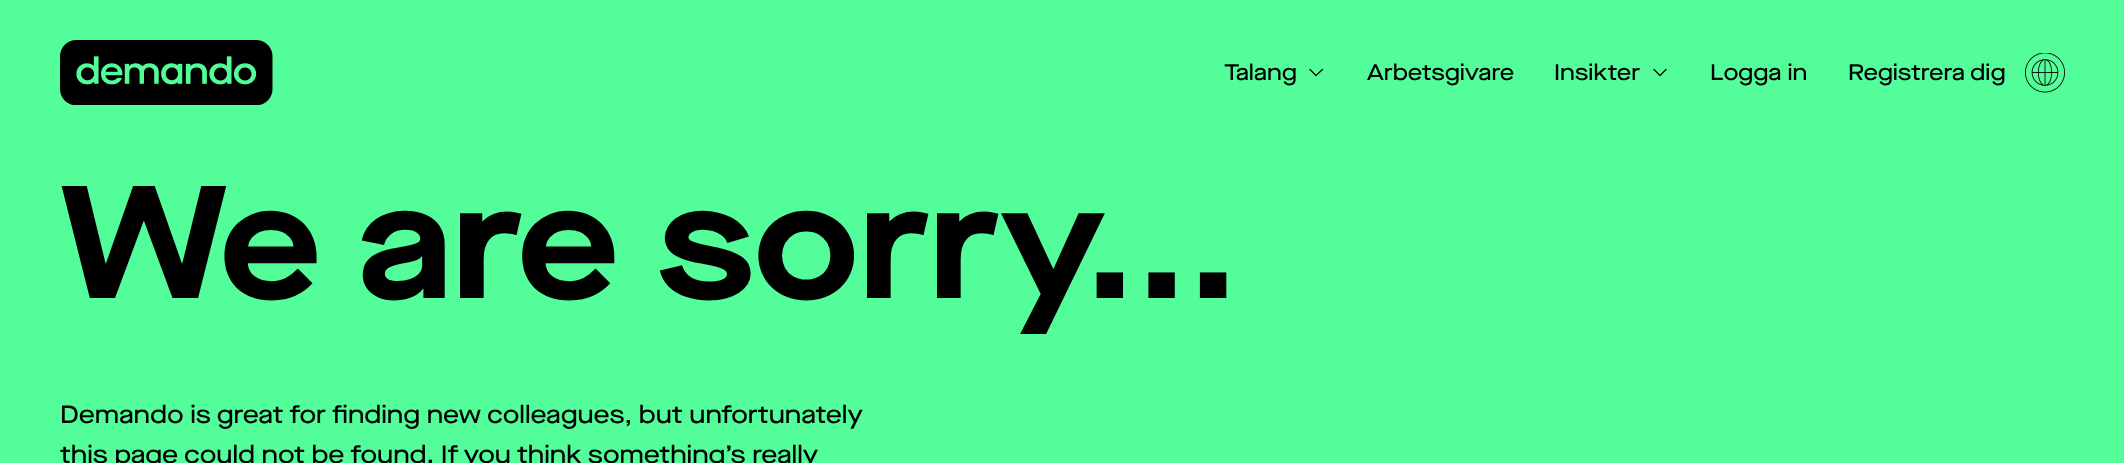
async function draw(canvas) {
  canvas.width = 2124
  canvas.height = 463
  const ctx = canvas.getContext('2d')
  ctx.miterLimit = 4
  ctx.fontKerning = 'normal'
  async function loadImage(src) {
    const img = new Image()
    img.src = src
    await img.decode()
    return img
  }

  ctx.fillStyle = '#53fd99'
  ctx.fillRect(0, 0, 2124, 463)
  ctx.drawImage(await loadImage('image0.png'), 60, 40, 213, 65)
  ctx.font = '500 22.5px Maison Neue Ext'
  ctx.fillStyle = '#000'
  ctx.fillText('Talang', 1224, 80)
  ctx.beginPath()
  ctx.moveTo(1322.5, 69.5)
  ctx.lineTo(1316, 75.5)
  ctx.lineTo(1310, 69.5)
  ctx.strokeStyle = '#000'
  ctx.lineWidth = 1.2
  ctx.lineCap = 'round'
  ctx.lineJoin = 'round'
  ctx.stroke()
  ctx.fillText('Arbetsgivare', 1367, 80)
  ctx.fillText('Insikter', 1554, 80)
  ctx.beginPath()
  ctx.moveTo(1666, 69.5)
  ctx.lineTo(1660, 75.5)
  ctx.lineTo(1654, 69.5)
  ctx.stroke()
  ctx.fillText('Logga in', 1710, 80)
  ctx.fillText('Registrera dig', 1848, 80)
  ctx.drawImage(await loadImage('image1.png'), 2025, 53, 40, 40)
  ctx.font = 'bold 160px Maison Neue Ext'
  ctx.fillText('We are sorry...', 60, 298)
  ctx.font = '500 25px Maison Neue Ext'
  ctx.fillText('Demando is great for finding new colleagues, but unfortunately', 60, 423)
  ctx.fillText('this page could not be found. If you think something’s really', 60, 463)
}

draw(document.querySelector('canvas'))
